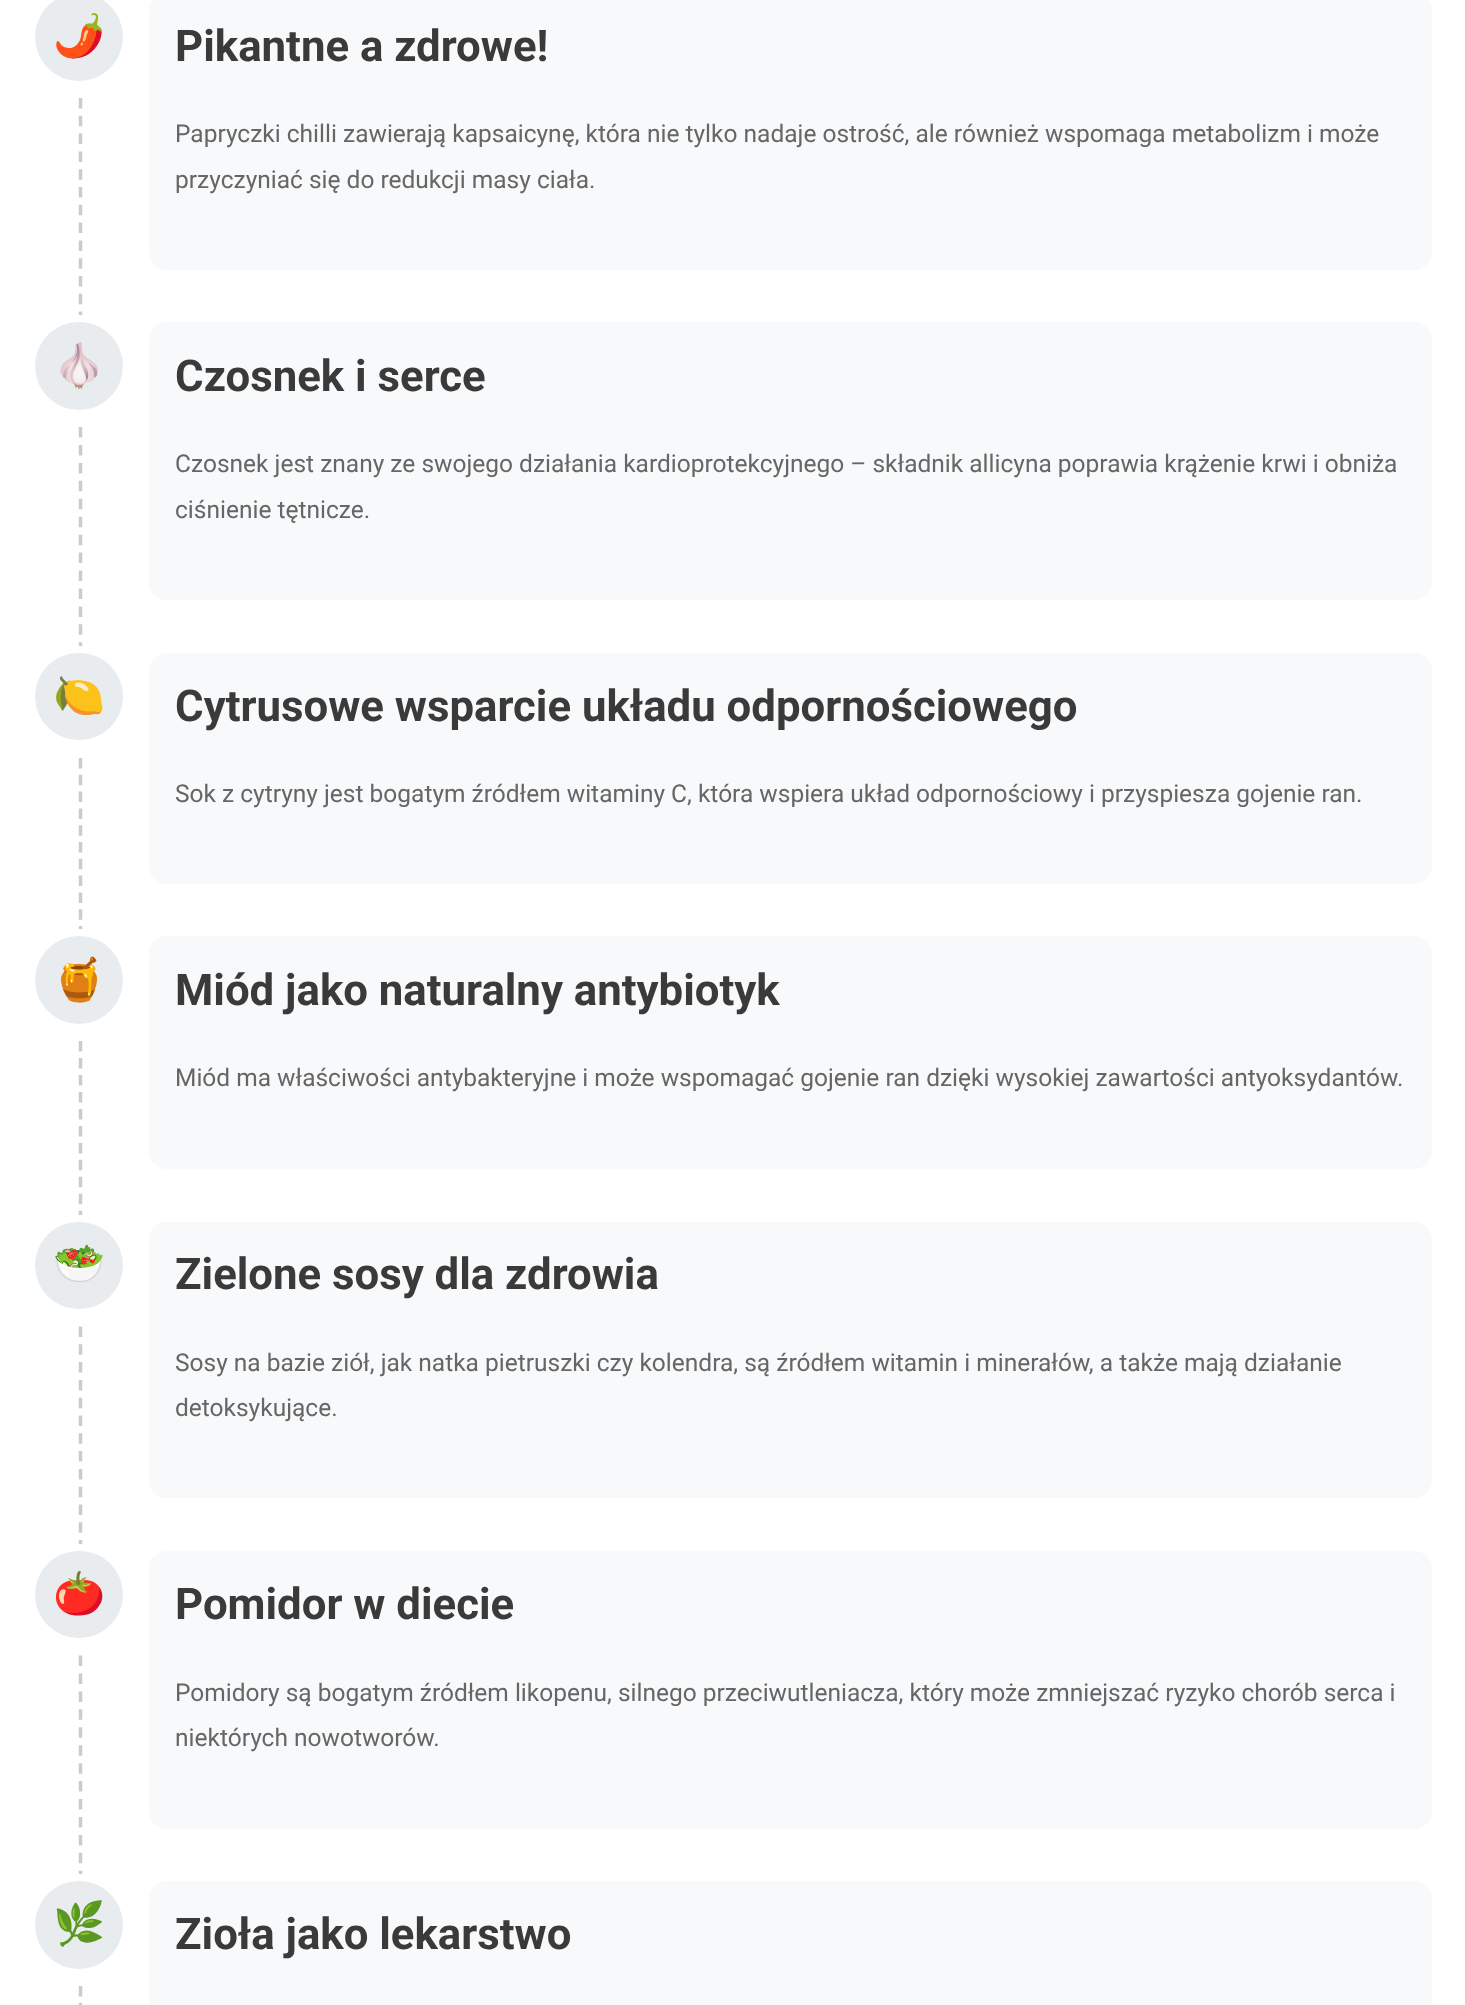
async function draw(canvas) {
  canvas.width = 1465
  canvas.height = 2005
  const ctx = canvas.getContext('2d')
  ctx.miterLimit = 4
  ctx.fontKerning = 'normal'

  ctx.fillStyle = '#fff'
  ctx.fillRect(0, 0, 1465, 2005)
  ctx.fillStyle = '#e9ecef'
  ctx.beginPath()
  ctx.arc(79, 37, 44, 0, 2 * Math.PI)
  ctx.fill()
  ctx.font = '42px Noto Color Emoji'
  ctx.fillStyle = '#3a3a3a'
  ctx.fillText('🌶️', 53, 50)
  ctx.fillStyle = '#f8f9fa'
  ctx.beginPath()
  ctx.roundRect(149, -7, 1283, 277, 18)
  ctx.fill()
  ctx.font = 'bold 43.75px Roboto'
  ctx.fillStyle = '#3a3a3a'
  ctx.fillText('Pikantne a zdrowe!', 175, 61)
  ctx.font = '24.5px Roboto'
  ctx.fillStyle = '#666'
  ctx.fillText('Papryczki chilli zawierają kapsaicynę, która nie tylko nadaje ostrość, ale również wspomaga metabolizm i może', 175, 142)
  ctx.fillText('przyczyniać się do redukcji masy ciała.', 175, 188)
  ctx.beginPath()
  ctx.moveTo(80.5, 98)
  ctx.lineTo(80.5, 322)
  ctx.strokeStyle = '#ccc'
  ctx.lineWidth = 3.5
  ctx.setLineDash([10.5, 7.3])
  ctx.stroke()
  ctx.beginPath()
  ctx.arc(79, 366, 47.5, 0, 2 * Math.PI)
  ctx.strokeStyle = '#fff'
  ctx.lineWidth = 7
  ctx.setLineDash([])
  ctx.stroke()
  ctx.fillStyle = '#e9ecef'
  ctx.beginPath()
  ctx.arc(79, 366, 44, 0, 2 * Math.PI)
  ctx.fill()
  ctx.font = '42px Noto Color Emoji'
  ctx.fillStyle = '#3a3a3a'
  ctx.fillText('🧄', 53, 380)
  ctx.fillStyle = '#f8f9fa'
  ctx.beginPath()
  ctx.roundRect(149, 322, 1283, 278, 18)
  ctx.fill()
  ctx.font = 'bold 43.75px Roboto'
  ctx.fillStyle = '#3a3a3a'
  ctx.fillText('Czosnek i serce', 175, 391)
  ctx.font = '24.5px Roboto'
  ctx.fillStyle = '#666'
  ctx.fillText('Czosnek jest znany ze swojego działania kardioprotekcyjnego – składnik allicyna poprawia krążenie krwi i obniża', 175, 472)
  ctx.fillText('ciśnienie tętnicze.', 175, 518)
  ctx.beginPath()
  ctx.moveTo(80.5, 427)
  ctx.lineTo(80.5, 653)
  ctx.strokeStyle = '#ccc'
  ctx.lineWidth = 3.5
  ctx.setLineDash([10.5, 7.44])
  ctx.stroke()
  ctx.beginPath()
  ctx.roundRect(31.5, 649.5, 95, 94, 47)
  ctx.strokeStyle = '#fff'
  ctx.lineWidth = 7
  ctx.setLineDash([])
  ctx.stroke()
  ctx.fillStyle = '#e9ecef'
  ctx.beginPath()
  ctx.roundRect(35, 653, 88, 87, 43.5)
  ctx.fill()
  ctx.font = '42px Noto Color Emoji'
  ctx.fillStyle = '#3a3a3a'
  ctx.fillText('🍋', 53, 710)
  ctx.fillStyle = '#f8f9fa'
  ctx.beginPath()
  ctx.roundRect(149, 653, 1283, 231, 18)
  ctx.fill()
  ctx.font = 'bold 43.75px Roboto'
  ctx.fillStyle = '#3a3a3a'
  ctx.fillText('Cytrusowe wsparcie układu odpornościowego', 175, 721)
  ctx.font = '24.5px Roboto'
  ctx.fillStyle = '#666'
  ctx.fillText('Sok z cytryny jest bogatym źródłem witaminy C, która wspiera układ odpornościowy i przyspiesza gojenie ran.', 175, 802)
  ctx.beginPath()
  ctx.moveTo(80.5, 758)
  ctx.lineTo(80.5, 936)
  ctx.strokeStyle = '#ccc'
  ctx.lineWidth = 3.5
  ctx.setLineDash([10.5, 6.3])
  ctx.stroke()
  ctx.beginPath()
  ctx.arc(79, 980, 47.5, 0, 2 * Math.PI)
  ctx.strokeStyle = '#fff'
  ctx.lineWidth = 7
  ctx.setLineDash([])
  ctx.stroke()
  ctx.fillStyle = '#e9ecef'
  ctx.beginPath()
  ctx.arc(79, 980, 44, 0, 2 * Math.PI)
  ctx.fill()
  ctx.font = '42px Noto Color Emoji'
  ctx.fillStyle = '#3a3a3a'
  ctx.fillText('🍯', 53, 994)
  ctx.fillStyle = '#f8f9fa'
  ctx.beginPath()
  ctx.roundRect(149, 936, 1283, 233, 18)
  ctx.fill()
  ctx.font = 'bold 43.75px Roboto'
  ctx.fillStyle = '#3a3a3a'
  ctx.fillText('Miód jako naturalny antybiotyk', 175, 1005)
  ctx.font = '24.5px Roboto'
  ctx.fillStyle = '#666'
  ctx.fillText('Miód ma właściwości antybakteryjne i może wspomagać gojenie ran dzięki wysokiej zawartości antyoksydantów.', 175, 1086)
  ctx.beginPath()
  ctx.moveTo(80.5, 1041)
  ctx.lineTo(80.5, 1221.5)
  ctx.strokeStyle = '#ccc'
  ctx.lineWidth = 3.5
  ctx.setLineDash([10.5, 6.48])
  ctx.stroke()
  ctx.beginPath()
  ctx.roundRect(31.5, 1218.5, 95, 94, 47)
  ctx.strokeStyle = '#fff'
  ctx.lineWidth = 7
  ctx.setLineDash([])
  ctx.stroke()
  ctx.fillStyle = '#e9ecef'
  ctx.beginPath()
  ctx.roundRect(35, 1222, 88, 87, 43.5)
  ctx.fill()
  ctx.font = '42px Noto Color Emoji'
  ctx.fillStyle = '#3a3a3a'
  ctx.fillText('🥗', 53, 1278)
  ctx.fillStyle = '#f8f9fa'
  ctx.beginPath()
  ctx.roundRect(149, 1222, 1283, 276, 18)
  ctx.fill()
  ctx.font = 'bold 43.75px Roboto'
  ctx.fillStyle = '#3a3a3a'
  ctx.fillText('Zielone sosy dla zdrowia', 175, 1289)
  ctx.font = '24.5px Roboto'
  ctx.fillStyle = '#666'
  ctx.fillText('Sosy na bazie ziół, jak natka pietruszki czy kolendra, są źródłem witamin i minerałów, a także mają działanie', 175, 1371)
  ctx.fillText('detoksykujące.', 175, 1416)
  ctx.beginPath()
  ctx.moveTo(80.5, 1326.5)
  ctx.lineTo(80.5, 1550.5)
  ctx.strokeStyle = '#ccc'
  ctx.lineWidth = 3.5
  ctx.setLineDash([10.5, 7.3])
  ctx.stroke()
  ctx.beginPath()
  ctx.roundRect(31.5, 1547.5, 95, 94, 47)
  ctx.strokeStyle = '#fff'
  ctx.lineWidth = 7
  ctx.setLineDash([])
  ctx.stroke()
  ctx.fillStyle = '#e9ecef'
  ctx.beginPath()
  ctx.roundRect(35, 1551, 88, 87, 43.5)
  ctx.fill()
  ctx.font = '42px Noto Color Emoji'
  ctx.fillStyle = '#3a3a3a'
  ctx.fillText('🍅', 53, 1608)
  ctx.fillStyle = '#f8f9fa'
  ctx.beginPath()
  ctx.roundRect(149, 1551, 1283, 278, 18)
  ctx.fill()
  ctx.font = 'bold 43.75px Roboto'
  ctx.fillStyle = '#3a3a3a'
  ctx.fillText('Pomidor w diecie', 175, 1619)
  ctx.font = '24.5px Roboto'
  ctx.fillStyle = '#666'
  ctx.fillText('Pomidory są bogatym źródłem likopenu, silnego przeciwutleniacza, który może zmniejszać ryzyko chorób serca i', 175, 1701)
  ctx.fillText('niektórych nowotworów.', 175, 1746)
  ctx.beginPath()
  ctx.moveTo(80.5, 1655.5)
  ctx.lineTo(80.5, 1881)
  ctx.strokeStyle = '#ccc'
  ctx.lineWidth = 3.5
  ctx.setLineDash([10.5, 7.44])
  ctx.stroke()
  ctx.beginPath()
  ctx.arc(79, 1925, 47.5, 0, 2 * Math.PI)
  ctx.strokeStyle = '#fff'
  ctx.lineWidth = 7
  ctx.setLineDash([])
  ctx.stroke()
  ctx.fillStyle = '#e9ecef'
  ctx.beginPath()
  ctx.arc(79, 1925, 44, 0, 2 * Math.PI)
  ctx.fill()
  ctx.font = '42px Noto Color Emoji'
  ctx.fillStyle = '#3a3a3a'
  ctx.fillText('🌿', 53, 1938)
  ctx.fillStyle = '#f8f9fa'
  ctx.beginPath()
  ctx.roundRect(149, 1881, 1283, 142, 18)
  ctx.fill()
  ctx.font = 'bold 43.75px Roboto'
  ctx.fillStyle = '#3a3a3a'
  ctx.fillText('Zioła jako lekarstwo', 175, 1949)
  ctx.beginPath()
  ctx.moveTo(80.5, 1986)
  ctx.lineTo(80.5, 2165)
  ctx.strokeStyle = '#ccc'
  ctx.lineWidth = 3.5
  ctx.setLineDash([10.5, 6.3])
  ctx.stroke()
}

draw(document.querySelector('canvas'))
